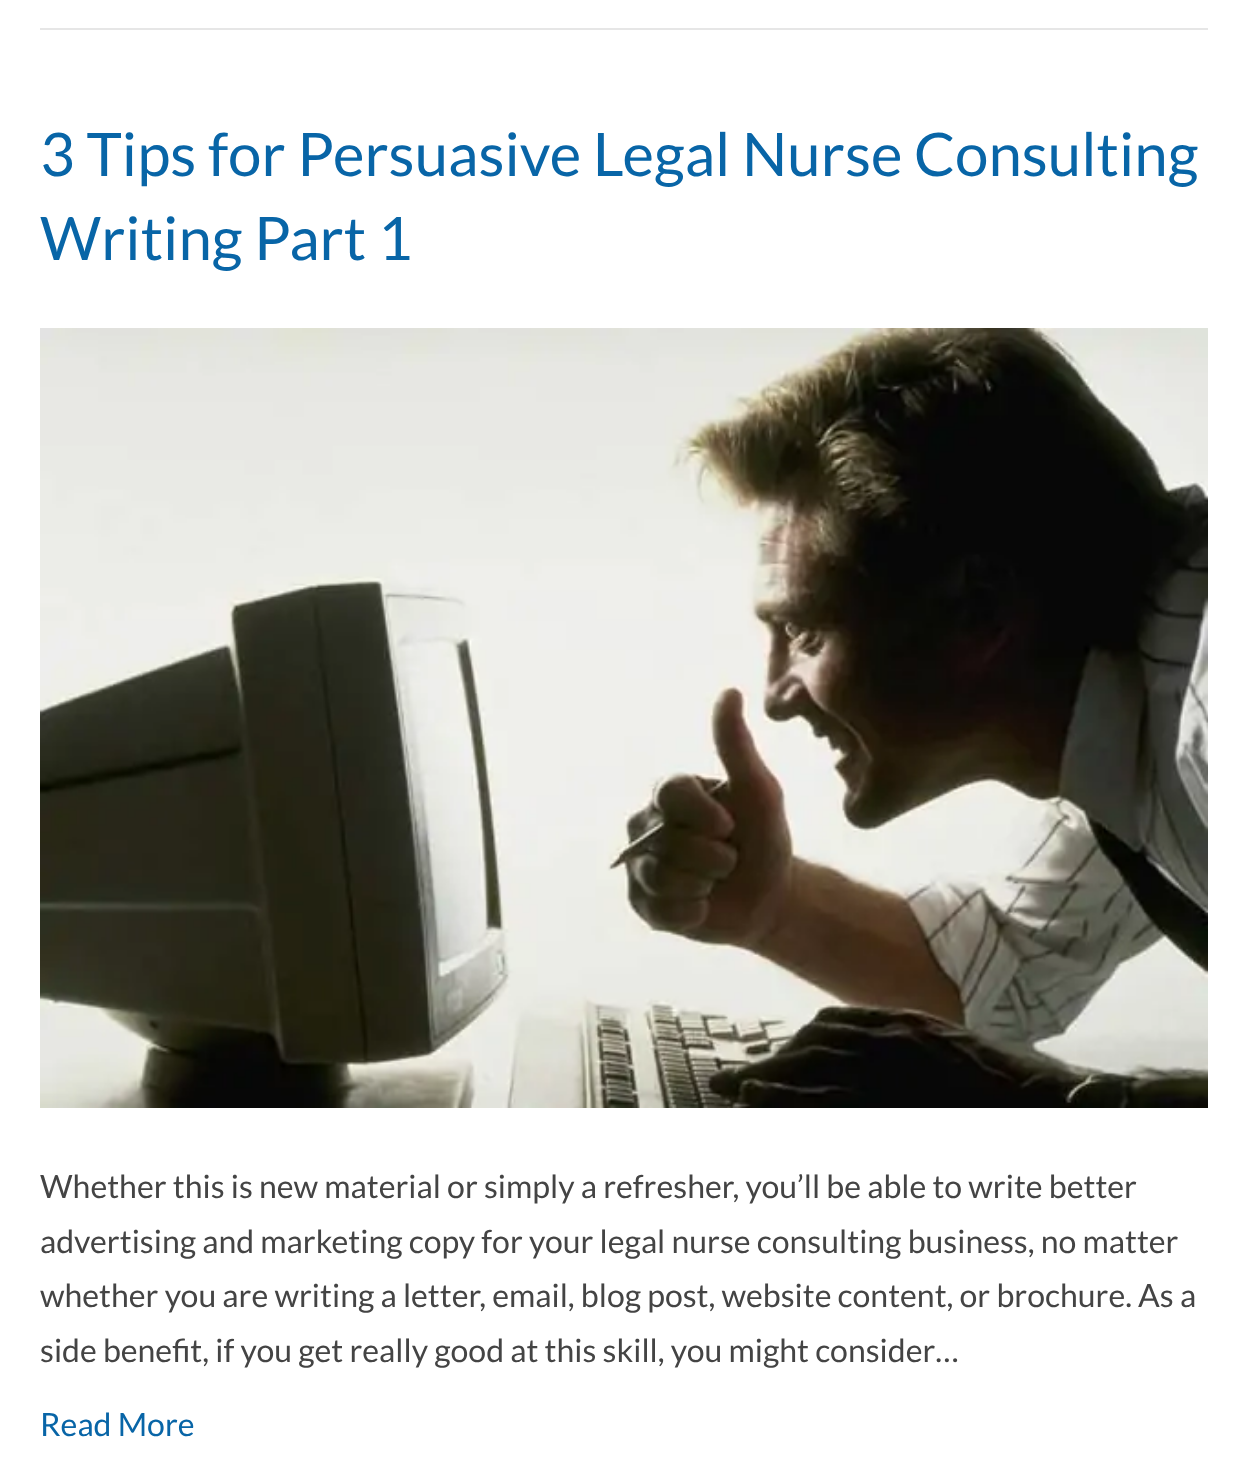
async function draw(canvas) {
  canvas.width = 1248
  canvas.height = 1484
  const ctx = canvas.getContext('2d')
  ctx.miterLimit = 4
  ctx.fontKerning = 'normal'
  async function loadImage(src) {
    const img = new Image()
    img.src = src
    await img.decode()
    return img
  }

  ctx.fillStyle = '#fff'
  ctx.fillRect(0, 0, 1248, 1484)
  ctx.fillStyle = '#e6e6e6'
  ctx.fillRect(40, 28, 1168, 2)
  ctx.font = '60px Lato'
  ctx.fillStyle = '#0865a7'
  ctx.fillText('3 Tips for Persuasive Legal Nurse Consulting', 40, 176)
  ctx.fillText('Writing Part 1', 40, 260)
  ctx.drawImage(await loadImage('image0.png'), 40, 328, 1168, 780)
  ctx.font = '32px Lato'
  ctx.fillStyle = '#444'
  ctx.fillText('Whether this is new material or simply a refresher, you’ll be able to write better', 40, 1198)
  ctx.fillText('advertising and marketing copy for your legal nurse consulting business, no matter', 40, 1253)
  ctx.fillText('whether you are writing a letter, email, blog post, website content, or brochure. As a', 40, 1307)
  ctx.fillText('side benefit, if you get really good at this skill, you might consider…', 40, 1362)
  ctx.fillStyle = '#0865a7'
  ctx.fillText('Read More', 40, 1436)
}

draw(document.querySelector('canvas'))
